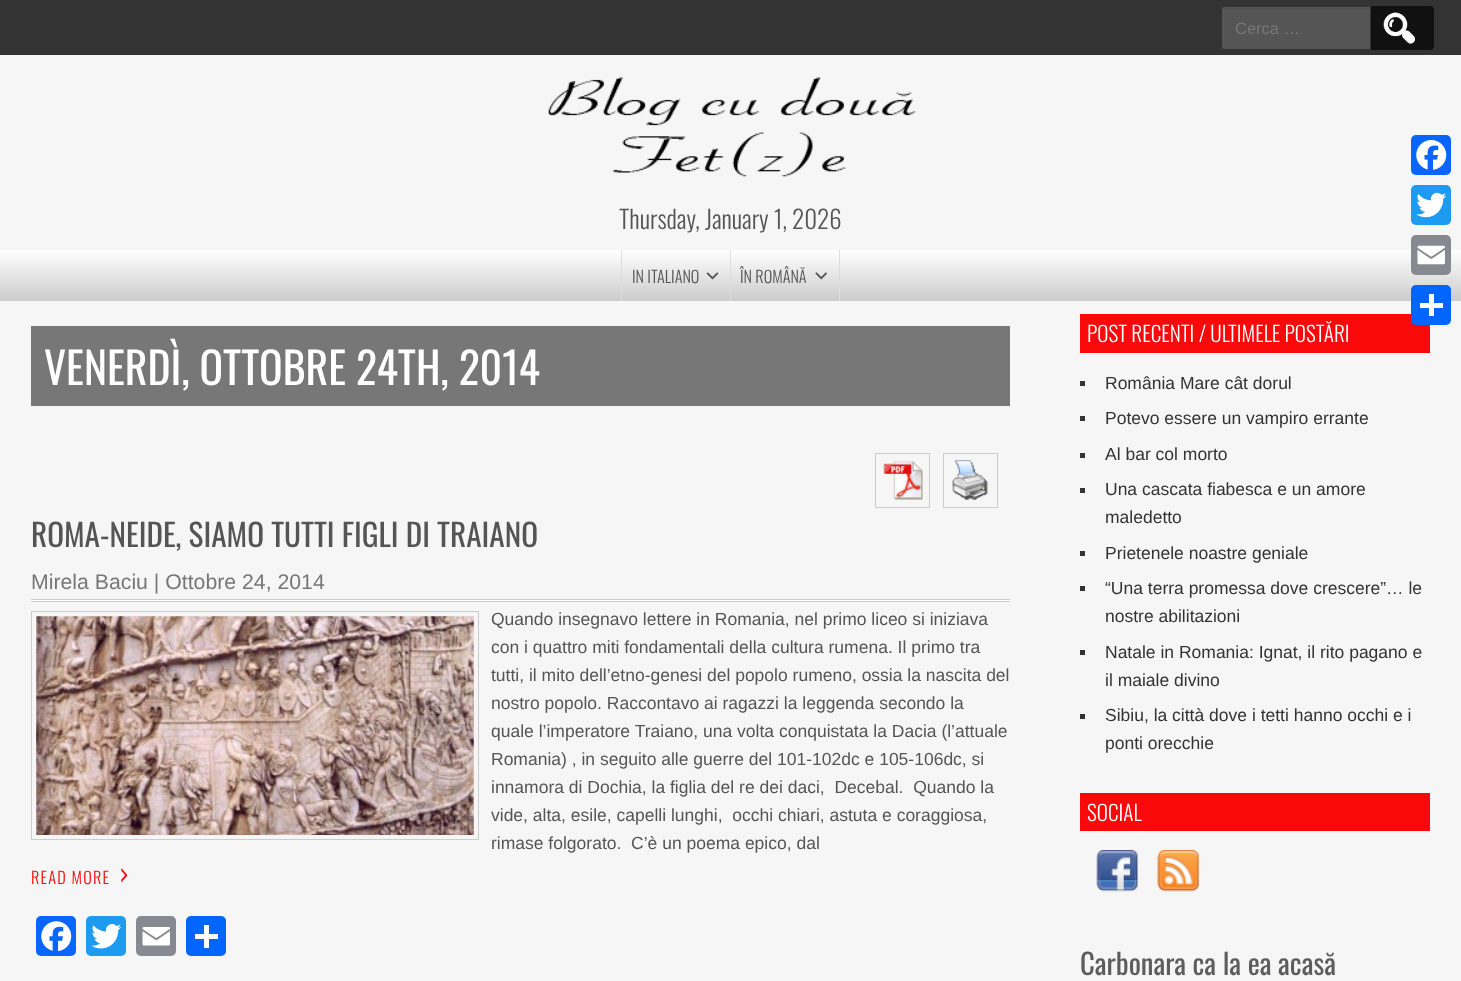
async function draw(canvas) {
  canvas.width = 1461
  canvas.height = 981
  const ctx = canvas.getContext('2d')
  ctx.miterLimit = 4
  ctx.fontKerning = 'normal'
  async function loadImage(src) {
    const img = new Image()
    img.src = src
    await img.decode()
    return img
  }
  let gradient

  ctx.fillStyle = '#f6f6f6'
  ctx.fillRect(0, 0, 1461, 981)
  ctx.fillStyle = '#333'
  ctx.fillRect(0, 0, 1461, 55)
  ctx.fillStyle = '#111'
  ctx.beginPath()
  ctx.roundRect(1365, 6, 69, 44, [0, 4, 4, 0])
  ctx.fill()
  ctx.fillStyle = '#555'
  ctx.beginPath()
  ctx.roundRect(1221, 6, 150, 44, [4, 0, 0, 4])
  ctx.fill()
  ctx.fillStyle = '#4d4d4d'
  ctx.beginPath()
  ctx.moveTo(1225, 9)
  ctx.lineTo(1370, 9)
  ctx.lineTo(1370, 8)
  ctx.lineTo(1225, 8)
  ctx.lineTo(1223, 10)
  ctx.closePath()
  ctx.fill()
  ctx.beginPath()
  ctx.roundRect(1221.5, 6.5, 149, 43, [3.5, 0, 0, 3.5])
  ctx.strokeStyle = '#333'
  ctx.stroke()
  ctx.font = '16.5px Liberation Sans'
  ctx.fillStyle = '#777'
  ctx.fillText('Cerca …', 1235, 34)
  ctx.drawImage(await loadImage('image0.png'), 1383, 12, 32, 32)
  ctx.drawImage(await loadImage('image1.png'), 548, 77, 368, 100)
  ctx.font = '300 25px Oswald'
  ctx.fillStyle = '#555'
  ctx.fillText('Thursday, January 1, 2026', 619, 229)
  gradient = ctx.createLinearGradient(731, 250, 731, 301)
  gradient.addColorStop(0, '#fff')
  gradient.addColorStop(1, '#ccc')
  gradient.addColorStop(1, '#f6f6f6')
  ctx.fillStyle = gradient
  ctx.fillRect(0, 250, 1461, 51)
  ctx.fillStyle = '#ddd'
  ctx.fillRect(621, 250, 1, 51)
  ctx.fillRect(730, 250, 1, 51)
  ctx.font = '300 16.25px Oswald'
  ctx.fillStyle = '#555'
  ctx.fillText('IN ITALIANO', 632, 283)
  ctx.drawImage(await loadImage('image2.png'), 706, 272, 13, 8)
  ctx.fillStyle = '#ddd'
  ctx.fillRect(839, 250, 1, 51)
  ctx.fillStyle = '#555'
  ctx.fillText('ÎN ROMÂNĂ', 740, 283)
  ctx.drawImage(await loadImage('image3.png'), 815, 272, 13, 8)
  ctx.fillStyle = '#777'
  ctx.fillRect(31, 326, 979, 80)
  ctx.font = '43.75px Oswald'
  ctx.fillStyle = '#fff'
  ctx.fillText('VENERDÌ, OTTOBRE 24TH, 2014', 44, 385)
  ctx.strokeStyle = '#ccc'
  ctx.strokeRect(875.5, 453.5, 54, 54)
  ctx.drawImage(await loadImage('image4.png'), 883, 461, 40, 39)
  ctx.strokeRect(943.5, 453.5, 54, 54)
  ctx.drawImage(await loadImage('image5.png'), 952, 460, 36, 40)
  ctx.font = '31.25px Oswald'
  ctx.fillStyle = '#555'
  ctx.fillText('ROMA-NEIDE, SIAMO TUTTI FIGLI DI TRAIANO', 31, 547)
  ctx.font = '21.25px Liberation Sans'
  ctx.fillStyle = '#777'
  ctx.fillText('Mirela Baciu | Ottobre 24, 2014', 31, 589)
  ctx.fillStyle = '#ccc'
  ctx.fillRect(31, 599, 979, 3)
  ctx.fillStyle = '#fff'
  ctx.fillRect(31, 600, 979, 1)
  ctx.strokeRect(31.5, 611.5, 447, 228)
  ctx.drawImage(await loadImage('image6.png'), 36, 616, 438, 219)
  ctx.font = '17.5px Liberation Sans'
  ctx.fillStyle = '#555'
  ctx.fillText('Quando insegnavo lettere in Romania, nel primo liceo si iniziava', 491, 625)
  ctx.fillText('con i quattro miti fondamentali della cultura rumena. Il primo tra', 491, 653)
  ctx.fillText('tutti, il mito dell’etno-genesi del popolo rumeno, ossia la nascita del', 491, 681)
  ctx.fillText('nostro popolo. Raccontavo ai ragazzi la leggenda secondo la', 491, 709)
  ctx.fillText('quale l’imperatore Traiano, una volta conquistata la Dacia (l’attuale', 491, 737)
  ctx.fillText('Romania) , in seguito alle guerre del 101-102dc e 105-106dc, si', 491, 765)
  ctx.fillText('innamora di Dochia, la figlia del re dei daci,  Decebal.  Quando la', 491, 793)
  ctx.fillText('vide, alta, esile, capelli lunghi,  occhi chiari, astuta e coraggiosa,', 491, 821)
  ctx.fillText('rimase folgorato.  C’è un poema epico, dal', 491, 849)
  ctx.letterSpacing = '1.25px'
  ctx.font = '300 16.25px Oswald'
  ctx.fillStyle = '#f90909'
  ctx.fillText('READ MORE', 31, 884)
  ctx.font = '300 31.25px Oswald'
  ctx.fillText('›', 119, 886)
  ctx.fillStyle = '#0866ff'
  ctx.beginPath()
  ctx.roundRect(36, 916, 40, 40, 5)
  ctx.fill()
  ctx.drawImage(await loadImage('image7.png'), 41, 921, 31, 31)
  ctx.fillStyle = '#1d9bf0'
  ctx.beginPath()
  ctx.roundRect(86, 916, 40, 40, 5)
  ctx.fill()
  ctx.drawImage(await loadImage('image8.png'), 91, 924, 31, 25)
  ctx.fillStyle = '#888990'
  ctx.beginPath()
  ctx.roundRect(136, 916, 40, 40, 5)
  ctx.fill()
  ctx.drawImage(await loadImage('image9.png'), 142, 927, 28, 19)
  ctx.fillStyle = '#0166ff'
  ctx.beginPath()
  ctx.roundRect(186, 916, 40, 40, 5)
  ctx.fill()
  ctx.fillStyle = '#fff'
  ctx.fillRect(204, 925, 5, 23)
  ctx.fillRect(195, 934, 23, 5)
  ctx.fillStyle = '#f90909'
  ctx.fillRect(1080, 314, 350, 39)
  ctx.letterSpacing = '0px'
  ctx.font = '300 21.25px Oswald'
  ctx.fillStyle = '#fff'
  ctx.fillText('POST RECENTI / ULTIMELE POSTĂRI', 1087, 342)
  ctx.fillStyle = '#333'
  ctx.fillRect(1080, 381, 5, 5)
  ctx.font = '17.5px Liberation Sans'
  ctx.fillText('România Mare cât dorul', 1105, 389)
  ctx.fillRect(1080, 416, 5, 5)
  ctx.fillText('Potevo essere un vampiro errante', 1105, 424)
  ctx.fillRect(1080, 453, 5, 5)
  ctx.fillText('Al bar col morto', 1105, 460)
  ctx.fillRect(1080, 488, 5, 5)
  ctx.fillText('Una cascata fiabesca e un amore', 1105, 495)
  ctx.fillText('maledetto', 1105, 523)
  ctx.fillRect(1080, 551, 5, 5)
  ctx.fillText('Prietenele noastre geniale', 1105, 559)
  ctx.fillRect(1080, 586, 5, 5)
  ctx.fillText('“Una terra promessa dove crescere”… le', 1105, 594)
  ctx.fillText('nostre abilitazioni', 1105, 622)
  ctx.fillRect(1080, 650, 5, 5)
  ctx.fillText('Natale in Romania: Ignat, il rito pagano e', 1105, 658)
  ctx.fillText('il maiale divino', 1105, 686)
  ctx.fillRect(1080, 714, 5, 5)
  ctx.fillText('Sibiu, la città dove i tetti hanno occhi e i', 1105, 721)
  ctx.fillText('ponti orecchie', 1105, 749)
  ctx.fillStyle = '#f90909'
  ctx.fillRect(1080, 793, 350, 38)
  ctx.font = '300 21.25px Oswald'
  ctx.fillStyle = '#fff'
  ctx.fillText('SOCIAL', 1087, 821)
  ctx.drawImage(await loadImage('image10.png'), 1096, 850, 42, 42)
  ctx.drawImage(await loadImage('image11.png'), 1157, 850, 42, 42)
  ctx.font = '28.75px Oswald'
  ctx.fillStyle = '#5d5d5d'
  ctx.fillText('Carbonara ca la ea acasă', 1080, 975)
  ctx.fillStyle = '#0866ff'
  ctx.beginPath()
  ctx.roundRect(1411, 135, 40, 40, 5)
  ctx.fill()
  ctx.drawImage(await loadImage('image12.png'), 1416, 140, 31, 30)
  ctx.fillStyle = '#1d9bf0'
  ctx.beginPath()
  ctx.roundRect(1411, 185, 40, 40, 5)
  ctx.fill()
  ctx.drawImage(await loadImage('image13.png'), 1416, 192, 31, 26)
  ctx.fillStyle = '#888990'
  ctx.beginPath()
  ctx.roundRect(1411, 235, 40, 40, 5)
  ctx.fill()
  ctx.drawImage(await loadImage('image14.png'), 1417, 245, 28, 20)
  ctx.fillStyle = '#0166ff'
  ctx.beginPath()
  ctx.roundRect(1411, 285, 40, 40, 5)
  ctx.fill()
  ctx.fillStyle = '#fff'
  ctx.fillRect(1429, 294, 5, 22)
  ctx.fillRect(1420, 303, 23, 5)
}

draw(document.querySelector('canvas'))
